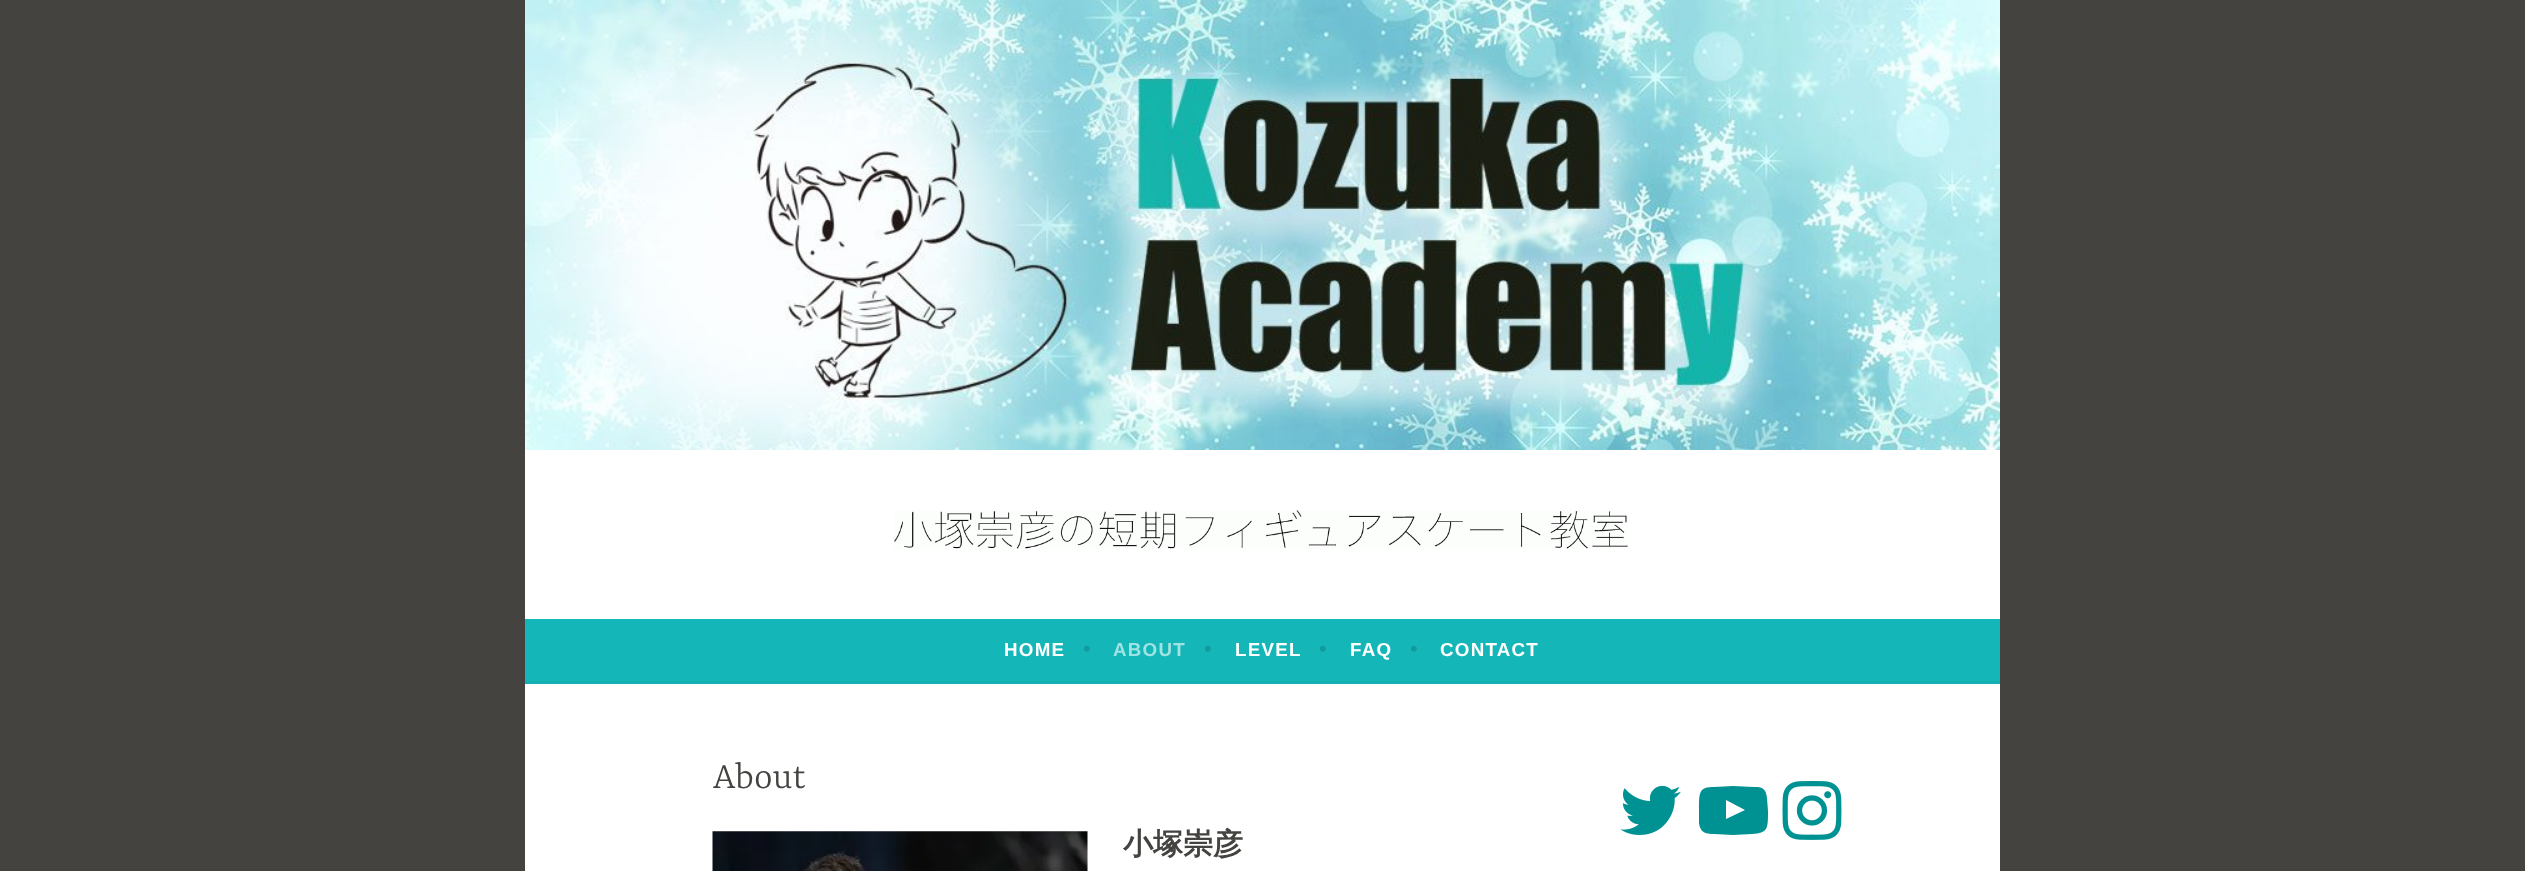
async function draw(canvas) {
  canvas.width = 2525
  canvas.height = 871
  const ctx = canvas.getContext('2d')
  ctx.miterLimit = 4
  ctx.fontKerning = 'normal'
  async function loadImage(src) {
    const img = new Image()
    img.src = src
    await img.decode()
    return img
  }

  ctx.fillStyle = '#444340'
  ctx.fillRect(0, 0, 2525, 871)
  ctx.drawImage(await loadImage('image0.png'), 525, 0, 1475, 450)
  ctx.fillStyle = '#fff'
  ctx.fillRect(525, 450, 1475, 169)
  ctx.drawImage(await loadImage('image1.png'), 894, 510, 734, 39)
  ctx.fillStyle = '#15b6b8'
  ctx.fillRect(525, 619, 1475, 62)
  ctx.fillStyle = '#14b1b2'
  ctx.fillRect(525, 681, 1475, 3)
  ctx.letterSpacing = '1.25px'
  ctx.font = 'bold 18.75px Liberation Sans'
  ctx.fillStyle = '#fff'
  ctx.fillText('HOME', 1004, 656)
  ctx.letterSpacing = '0px'
  ctx.font = '22px Liberation Sans'
  ctx.fillStyle = '#129b9c'
  ctx.fillText('•', 1083, 656)
  ctx.letterSpacing = '1.25px'
  ctx.font = 'bold 18.75px Liberation Sans'
  ctx.fillStyle = '#a1e2e3'
  ctx.fillText('ABOUT', 1113, 656)
  ctx.letterSpacing = '0px'
  ctx.font = '22px Liberation Sans'
  ctx.fillStyle = '#129b9c'
  ctx.fillText('•', 1204, 656)
  ctx.letterSpacing = '1.25px'
  ctx.font = 'bold 18.75px Liberation Sans'
  ctx.fillStyle = '#fff'
  ctx.fillText('LEVEL', 1235, 656)
  ctx.letterSpacing = '0px'
  ctx.font = '22px Liberation Sans'
  ctx.fillStyle = '#129b9c'
  ctx.fillText('•', 1319, 656)
  ctx.letterSpacing = '1.25px'
  ctx.font = 'bold 18.75px Liberation Sans'
  ctx.fillStyle = '#fff'
  ctx.fillText('FAQ', 1350, 656)
  ctx.letterSpacing = '0px'
  ctx.font = '22px Liberation Sans'
  ctx.fillStyle = '#129b9c'
  ctx.fillText('•', 1410, 656)
  ctx.letterSpacing = '1.25px'
  ctx.font = 'bold 18.75px Liberation Sans'
  ctx.fillStyle = '#fff'
  ctx.fillText('CONTACT', 1440, 656)
  ctx.fillRect(525, 684, 1475, 187)
  ctx.letterSpacing = '0px'
  ctx.font = '300 40px Yrsa'
  ctx.fillStyle = '#444340'
  ctx.fillText('About', 713, 788)
  ctx.drawImage(await loadImage('image2.png'), 712, 831, 376, 40)
  ctx.font = 'bold 30px WenQuanYi Zen Hei'
  ctx.fillText('小塚崇彦', 1123, 854)
  ctx.drawImage(await loadImage('image3.png'), 1620, 785, 61, 50)
  ctx.fillStyle = '#009193'
  ctx.beginPath()
  ctx.moveTo(1726, 819)
  ctx.lineTo(1745, 810)
  ctx.lineTo(1726, 800)
  ctx.closePath()
  ctx.moveTo(1733, 786)
  ctx.lineTo(1754, 787)
  ctx.bezierCurveTo(1762, 787, 1766, 788, 1767, 798)
  ctx.lineTo(1768, 811)
  ctx.bezierCurveTo(1768, 829, 1768, 833, 1752, 834)
  ctx.lineTo(1733, 835)
  ctx.lineTo(1714, 834)
  ctx.bezierCurveTo(1705, 834, 1700, 832, 1699, 823)
  ctx.lineTo(1699, 810)
  ctx.bezierCurveTo(1699, 792, 1699, 787, 1714, 787)
  ctx.closePath()
  ctx.fill()
  ctx.drawImage(await loadImage('image4.png'), 1782, 781, 60, 59)
}

draw(document.querySelector('canvas'))
